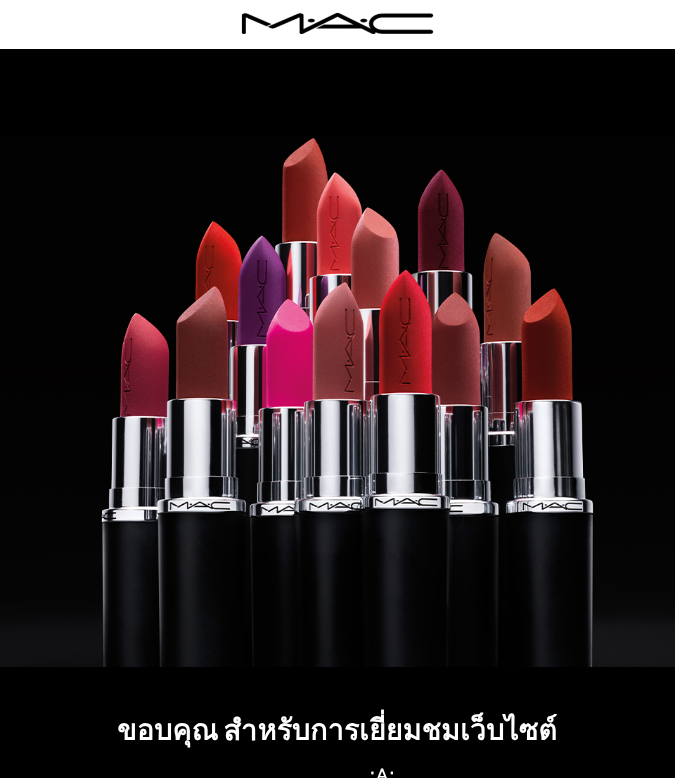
async function draw(canvas) {
  canvas.width = 675
  canvas.height = 778
  const ctx = canvas.getContext('2d')
  ctx.miterLimit = 4
  ctx.fontKerning = 'normal'
  async function loadImage(src) {
    const img = new Image()
    img.src = src
    await img.decode()
    return img
  }

  ctx.fillStyle = '#000'
  ctx.fillRect(0, 0, 675, 778)
  ctx.fillStyle = '#fff'
  ctx.fillRect(0, 0, 675, 49)
  ctx.drawImage(await loadImage('image0.png'), 241, 12, 193, 22)
  ctx.drawImage(await loadImage('image1.png'), 0, 137, 675, 530)
  ctx.wordSpacing = '-4px'
  ctx.font = 'bold 28.75px Loma'
  ctx.fillText('ขอบคุณ สำหรับการเยี่ยมชมเว็บไซต์', 117, 740)
  ctx.wordSpacing = '-1px'
  ctx.font = '19px Loma'
  ctx.fillText('·A·', 369, 782)
}

draw(document.querySelector('canvas'))
